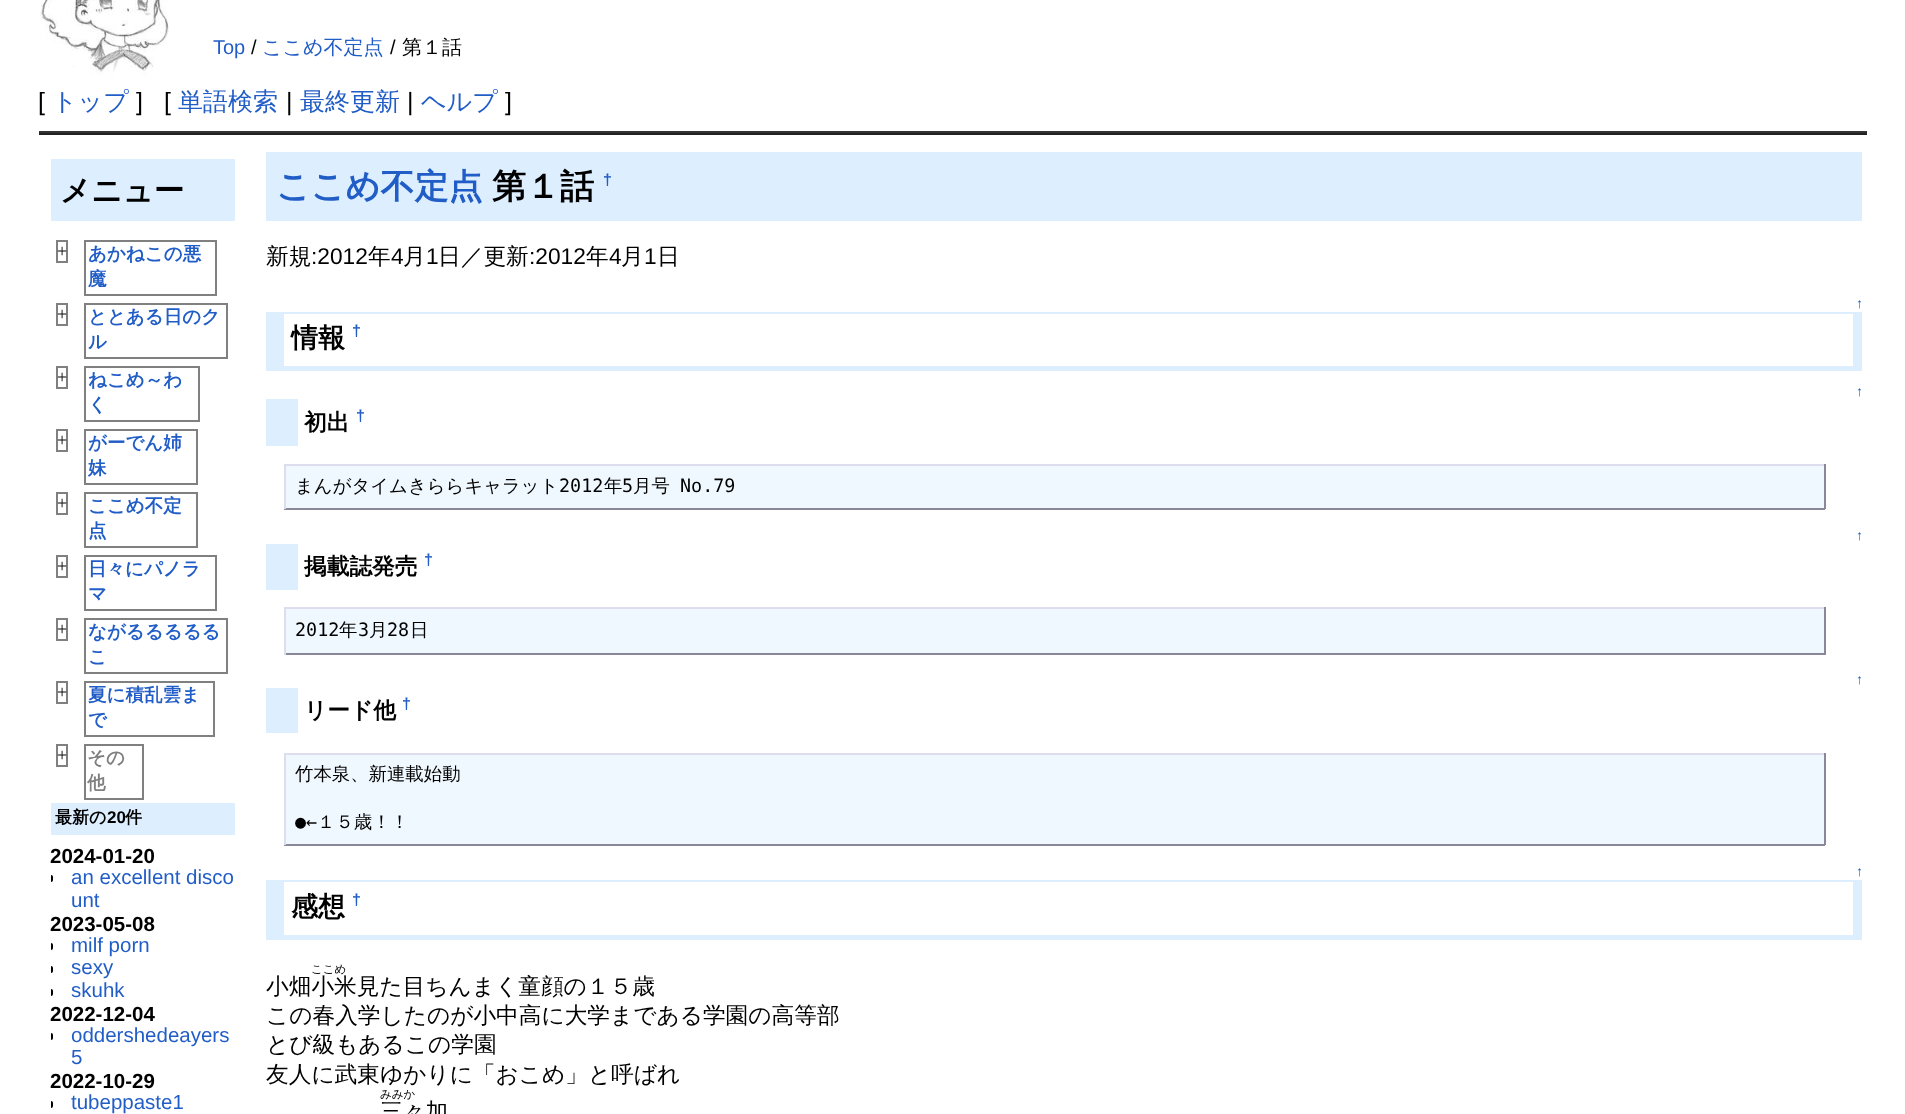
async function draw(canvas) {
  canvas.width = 1905
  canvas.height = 1114
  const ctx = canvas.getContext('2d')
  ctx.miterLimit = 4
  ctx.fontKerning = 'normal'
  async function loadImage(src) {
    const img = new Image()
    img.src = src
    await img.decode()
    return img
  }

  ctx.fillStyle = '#fff'
  ctx.fillRect(0, 0, 1905, 1114)
  ctx.drawImage(await loadImage('image0.png'), 40, 0, 129, 76)
  ctx.font = '20px Liberation Sans'
  ctx.fillStyle = '#215dc6'
  ctx.fillText('Top', 213, 54)
  ctx.fillStyle = '#000'
  ctx.fillText('/', 251, 54)
  ctx.font = '500 20px WenQuanYi Zen Hei'
  ctx.fillStyle = '#215dc6'
  ctx.fillText('ここめ不定点', 262, 54)
  ctx.font = '20px Liberation Sans'
  ctx.fillStyle = '#000'
  ctx.fillText('/', 390, 54)
  ctx.font = '500 20px WenQuanYi Zen Hei'
  ctx.fillText('第１話', 402, 54)
  ctx.font = '25px Liberation Sans'
  ctx.fillText('[', 38, 110)
  ctx.font = '500 25px WenQuanYi Zen Hei'
  ctx.fillStyle = '#215dc6'
  ctx.fillText('トップ', 52, 110)
  ctx.font = '25px Liberation Sans'
  ctx.fillStyle = '#000'
  ctx.fillText(']', 136, 110)
  ctx.fillText('[', 164, 110)
  ctx.font = '500 25px WenQuanYi Zen Hei'
  ctx.fillStyle = '#215dc6'
  ctx.fillText('単語検索', 178, 110)
  ctx.font = '25px Liberation Sans'
  ctx.fillStyle = '#000'
  ctx.fillText('|', 286, 110)
  ctx.font = '500 25px WenQuanYi Zen Hei'
  ctx.fillStyle = '#215dc6'
  ctx.fillText('最終更新', 300, 110)
  ctx.font = '25px Liberation Sans'
  ctx.fillStyle = '#000'
  ctx.fillText('|', 407, 110)
  ctx.font = '500 25px WenQuanYi Zen Hei'
  ctx.fillStyle = '#215dc6'
  ctx.fillText('ヘルプ', 421, 110)
  ctx.font = '25px Liberation Sans'
  ctx.fillStyle = '#000'
  ctx.fillText(']', 505, 110)
  ctx.fillStyle = '#333'
  ctx.fillRect(39, 131, 1828, 2)
  ctx.fillStyle = '#222'
  ctx.fillRect(39, 133, 1828, 2)
  ctx.fillStyle = '#def'
  ctx.fillRect(51, 159, 184, 62)
  ctx.font = 'bold 30.5px WenQuanYi Zen Hei'
  ctx.fillStyle = '#000'
  ctx.fillText('メニュー', 60, 201)
  ctx.strokeStyle = '#808080'
  ctx.lineWidth = 2
  ctx.strokeRect(57, 241, 10, 21)
  ctx.font = '18px Liberation Serif'
  ctx.fillText('+', 57, 257)
  ctx.strokeRect(85, 241, 131, 54)
  ctx.font = 'bold 18.5px WenQuanYi Zen Hei'
  ctx.fillStyle = '#215dc6'
  ctx.fillText('あかねこの悪', 88, 260)
  ctx.fillText('魔', 88, 285)
  ctx.strokeRect(57, 304, 10, 21)
  ctx.font = '18px Liberation Serif'
  ctx.fillStyle = '#000'
  ctx.fillText('+', 57, 320)
  ctx.strokeRect(85, 304, 142, 54)
  ctx.font = 'bold 18.5px WenQuanYi Zen Hei'
  ctx.fillStyle = '#215dc6'
  ctx.fillText('ととある日のク', 88, 323)
  ctx.fillText('ル', 88, 348)
  ctx.strokeRect(57, 367, 10, 21)
  ctx.font = '18px Liberation Serif'
  ctx.fillStyle = '#000'
  ctx.fillText('+', 57, 383)
  ctx.strokeRect(85, 367, 114, 54)
  ctx.font = 'bold 18.5px WenQuanYi Zen Hei'
  ctx.fillStyle = '#215dc6'
  ctx.fillText('ねこめ～わ', 88, 386)
  ctx.fillText('く', 88, 411)
  ctx.strokeRect(57, 430, 10, 21)
  ctx.font = '18px Liberation Serif'
  ctx.fillStyle = '#000'
  ctx.fillText('+', 57, 446)
  ctx.strokeRect(85, 430, 112, 54)
  ctx.font = 'bold 18.5px WenQuanYi Zen Hei'
  ctx.fillStyle = '#215dc6'
  ctx.fillText('がーでん姉', 88, 449)
  ctx.fillText('妹', 88, 474)
  ctx.strokeRect(57, 493, 10, 21)
  ctx.font = '18px Liberation Serif'
  ctx.fillStyle = '#000'
  ctx.fillText('+', 57, 509)
  ctx.strokeRect(85, 493, 112, 54)
  ctx.font = 'bold 18.5px WenQuanYi Zen Hei'
  ctx.fillStyle = '#215dc6'
  ctx.fillText('ここめ不定', 88, 512)
  ctx.fillText('点', 88, 537)
  ctx.strokeRect(57, 556, 10, 21)
  ctx.font = '18px Liberation Serif'
  ctx.fillStyle = '#000'
  ctx.fillText('+', 57, 572)
  ctx.strokeRect(85, 556, 131, 54)
  ctx.font = 'bold 18.5px WenQuanYi Zen Hei'
  ctx.fillStyle = '#215dc6'
  ctx.fillText('日々にパノラ', 88, 575)
  ctx.fillText('マ', 88, 600)
  ctx.strokeRect(57, 619, 10, 21)
  ctx.font = '18px Liberation Serif'
  ctx.fillStyle = '#000'
  ctx.fillText('+', 57, 635)
  ctx.strokeRect(85, 619, 142, 54)
  ctx.font = 'bold 18.5px WenQuanYi Zen Hei'
  ctx.fillStyle = '#215dc6'
  ctx.fillText('ながるるるるる', 88, 638)
  ctx.fillText('こ', 88, 663)
  ctx.strokeRect(57, 682, 10, 21)
  ctx.font = '18px Liberation Serif'
  ctx.fillStyle = '#000'
  ctx.fillText('+', 57, 698)
  ctx.strokeRect(85, 682, 129, 54)
  ctx.font = 'bold 18.5px WenQuanYi Zen Hei'
  ctx.fillStyle = '#215dc6'
  ctx.fillText('夏に積乱雲ま', 88, 701)
  ctx.fillText('で', 88, 726)
  ctx.strokeRect(57, 745, 10, 21)
  ctx.font = '18px Liberation Serif'
  ctx.fillStyle = '#000'
  ctx.fillText('+', 57, 761)
  ctx.strokeRect(85, 745, 58, 54)
  ctx.font = 'bold 18.5px WenQuanYi Zen Hei'
  ctx.fillStyle = '#808080'
  ctx.fillText('その', 87, 764)
  ctx.fillText('他', 87, 789)
  ctx.fillStyle = '#def'
  ctx.fillRect(51, 803, 184, 32)
  ctx.font = 'bold 17px WenQuanYi Zen Hei'
  ctx.fillStyle = '#000'
  ctx.fillText('最新の', 55, 823)
  ctx.font = 'bold 17px Liberation Sans'
  ctx.fillText('20', 107, 823)
  ctx.font = 'bold 17px WenQuanYi Zen Hei'
  ctx.fillText('件', 125, 823)
  ctx.font = 'bold 20.5px Liberation Sans'
  ctx.fillText('2024-01-20', 50, 863)
  ctx.beginPath()
  ctx.roundRect(51, 875, 2, 7, [0, 3.5, 3.5, 0])
  ctx.fill()
  ctx.font = '20.5px Liberation Sans'
  ctx.fillStyle = '#215dc6'
  ctx.fillText('an excellent disco', 71, 884)
  ctx.fillText('unt', 71, 907)
  ctx.font = 'bold 20.5px Liberation Sans'
  ctx.fillStyle = '#000'
  ctx.fillText('2023-05-08', 50, 931)
  ctx.beginPath()
  ctx.roundRect(51, 943, 2, 7, [0, 3.5, 3.5, 0])
  ctx.fill()
  ctx.font = '20.5px Liberation Sans'
  ctx.fillStyle = '#215dc6'
  ctx.fillText('milf porn', 71, 952)
  ctx.fillStyle = '#000'
  ctx.beginPath()
  ctx.roundRect(51, 966, 2, 7, [0, 3.5, 3.5, 0])
  ctx.fill()
  ctx.fillStyle = '#215dc6'
  ctx.fillText('sexy', 71, 974)
  ctx.fillStyle = '#000'
  ctx.beginPath()
  ctx.roundRect(51, 989, 2, 7, [0, 3.5, 3.5, 0])
  ctx.fill()
  ctx.fillStyle = '#215dc6'
  ctx.fillText('skuhk', 71, 997)
  ctx.font = 'bold 20.5px Liberation Sans'
  ctx.fillStyle = '#000'
  ctx.fillText('2022-12-04', 50, 1021)
  ctx.beginPath()
  ctx.roundRect(51, 1033, 2, 7, [0, 3.5, 3.5, 0])
  ctx.fill()
  ctx.font = '20.5px Liberation Sans'
  ctx.fillStyle = '#215dc6'
  ctx.fillText('oddershedeayers', 71, 1042)
  ctx.fillText('5', 71, 1064)
  ctx.font = 'bold 20.5px Liberation Sans'
  ctx.fillStyle = '#000'
  ctx.fillText('2022-10-29', 50, 1088)
  ctx.beginPath()
  ctx.roundRect(51, 1101, 2, 7, [0, 3.5, 3.5, 0])
  ctx.fill()
  ctx.font = '20.5px Liberation Sans'
  ctx.fillStyle = '#215dc6'
  ctx.fillText('tubeppaste1', 71, 1109)
  ctx.fillStyle = '#def'
  ctx.fillRect(266, 152, 1596, 69)
  ctx.font = 'bold 34px WenQuanYi Zen Hei'
  ctx.fillStyle = '#215dc6'
  ctx.fillText('ここめ不定点', 276, 198)
  ctx.fillStyle = '#000'
  ctx.fillText('第１話', 492, 198)
  ctx.font = 'bold 16px Liberation Sans'
  ctx.fillStyle = '#215dc6'
  ctx.fillText('†', 603, 185)
  ctx.font = '500 22.7px WenQuanYi Zen Hei'
  ctx.fillStyle = '#000'
  ctx.fillText('新規', 266, 264)
  ctx.font = '22.7px Liberation Sans'
  ctx.fillText(':2012', 311, 264)
  ctx.font = '500 22.7px WenQuanYi Zen Hei'
  ctx.fillText('年', 368, 264)
  ctx.font = '22.7px Liberation Sans'
  ctx.fillText('4', 391, 264)
  ctx.font = '500 22.7px WenQuanYi Zen Hei'
  ctx.fillText('月', 403, 264)
  ctx.font = '22.7px Liberation Sans'
  ctx.fillText('1', 426, 264)
  ctx.font = '500 22.7px WenQuanYi Zen Hei'
  ctx.fillText('日／更新', 438, 264)
  ctx.font = '22.7px Liberation Sans'
  ctx.fillText(':2012', 529, 264)
  ctx.font = '500 22.7px WenQuanYi Zen Hei'
  ctx.fillText('年', 586, 264)
  ctx.font = '22.7px Liberation Sans'
  ctx.fillText('4', 609, 264)
  ctx.font = '500 22.7px WenQuanYi Zen Hei'
  ctx.fillText('月', 621, 264)
  ctx.font = '22.7px Liberation Sans'
  ctx.fillText('1', 644, 264)
  ctx.font = '500 22.7px WenQuanYi Zen Hei'
  ctx.fillText('日', 657, 264)
  ctx.font = '14px Liberation Sans'
  ctx.fillStyle = '#215dc6'
  ctx.fillText('↑', 1856, 308)
  ctx.fillStyle = '#def'
  ctx.fillRect(284, 312, 1569, 2)
  ctx.fillRect(1853, 312, 9, 54)
  ctx.fillRect(284, 366, 1578, 5)
  ctx.fillRect(266, 312, 18, 59)
  ctx.font = 'bold 27px WenQuanYi Zen Hei'
  ctx.fillStyle = '#000'
  ctx.fillText('情報', 291, 347)
  ctx.font = 'bold 16px Liberation Sans'
  ctx.fillStyle = '#215dc6'
  ctx.fillText('†', 352, 336)
  ctx.font = '14px Liberation Sans'
  ctx.fillText('↑', 1856, 396)
  ctx.fillStyle = '#def'
  ctx.fillRect(266, 399, 32, 47)
  ctx.font = 'bold 22.7px WenQuanYi Zen Hei'
  ctx.fillStyle = '#000'
  ctx.fillText('初出', 304, 430)
  ctx.font = 'bold 16px Liberation Sans'
  ctx.fillStyle = '#215dc6'
  ctx.fillText('†', 356, 421)
  ctx.fillStyle = '#f0f8ff'
  ctx.fillRect(286, 466, 1538, 42)
  ctx.fillStyle = '#dde'
  ctx.fillRect(284, 464, 1541, 2)
  ctx.fillStyle = '#889'
  ctx.fillRect(1824, 464, 2, 45)
  ctx.fillRect(284, 508, 1541, 2)
  ctx.fillStyle = '#dde'
  ctx.fillRect(284, 464, 2, 45)
  ctx.font = '500 18.4px WenQuanYi Zen Hei'
  ctx.fillStyle = '#000'
  ctx.fillText('まんがタイムきららキャラット', 295, 492)
  ctx.font = '18.4px DejaVu Sans Mono'
  ctx.fillText('2012', 559, 492)
  ctx.font = '500 18.4px WenQuanYi Zen Hei'
  ctx.fillText('年', 604, 492)
  ctx.font = '18.4px DejaVu Sans Mono'
  ctx.fillText('5', 622, 492)
  ctx.font = '500 18.4px WenQuanYi Zen Hei'
  ctx.fillText('月号', 633, 492)
  ctx.font = '18.4px DejaVu Sans Mono'
  ctx.fillText('No.79', 680, 492)
  ctx.font = '14px Liberation Sans'
  ctx.fillStyle = '#215dc6'
  ctx.fillText('↑', 1856, 540)
  ctx.fillStyle = '#def'
  ctx.fillRect(266, 544, 32, 46)
  ctx.font = 'bold 22.7px WenQuanYi Zen Hei'
  ctx.fillStyle = '#000'
  ctx.fillText('掲載誌発売', 304, 574)
  ctx.font = 'bold 16px Liberation Sans'
  ctx.fillStyle = '#215dc6'
  ctx.fillText('†', 424, 565)
  ctx.fillStyle = '#f0f8ff'
  ctx.fillRect(286, 609, 1538, 44)
  ctx.fillStyle = '#dde'
  ctx.fillRect(284, 607, 1541, 2)
  ctx.fillStyle = '#889'
  ctx.fillRect(1824, 607, 2, 48)
  ctx.fillRect(284, 653, 1541, 2)
  ctx.fillStyle = '#dde'
  ctx.fillRect(284, 607, 2, 48)
  ctx.font = '18.4px DejaVu Sans Mono'
  ctx.fillStyle = '#000'
  ctx.fillText('2012', 295, 636)
  ctx.font = '500 18.4px WenQuanYi Zen Hei'
  ctx.fillText('年', 339, 636)
  ctx.font = '18.4px DejaVu Sans Mono'
  ctx.fillText('3', 358, 636)
  ctx.font = '500 18.4px WenQuanYi Zen Hei'
  ctx.fillText('月', 369, 636)
  ctx.font = '18.4px DejaVu Sans Mono'
  ctx.fillText('28', 387, 636)
  ctx.font = '500 18.4px WenQuanYi Zen Hei'
  ctx.fillText('日', 410, 636)
  ctx.font = '14px Liberation Sans'
  ctx.fillStyle = '#215dc6'
  ctx.fillText('↑', 1856, 684)
  ctx.fillStyle = '#def'
  ctx.fillRect(266, 688, 32, 45)
  ctx.font = 'bold 22.7px WenQuanYi Zen Hei'
  ctx.fillStyle = '#000'
  ctx.fillText('リード他', 304, 718)
  ctx.font = 'bold 16px Liberation Sans'
  ctx.fillStyle = '#215dc6'
  ctx.fillText('†', 402, 709)
  ctx.fillStyle = '#f0f8ff'
  ctx.fillRect(286, 755, 1538, 89)
  ctx.fillStyle = '#dde'
  ctx.fillRect(284, 753, 1541, 2)
  ctx.fillStyle = '#889'
  ctx.fillRect(1824, 753, 2, 92)
  ctx.fillRect(284, 844, 1541, 2)
  ctx.fillStyle = '#dde'
  ctx.fillRect(284, 753, 2, 92)
  ctx.font = '500 18.4px WenQuanYi Zen Hei'
  ctx.fillStyle = '#000'
  ctx.fillText('竹本泉、新連載始動', 295, 780)
  ctx.font = '18.4px DejaVu Sans Mono'
  ctx.fillText('●←', 295, 828)
  ctx.font = '500 18.4px WenQuanYi Zen Hei'
  ctx.fillText('１５歳！！', 317, 828)
  ctx.font = '14px Liberation Sans'
  ctx.fillStyle = '#215dc6'
  ctx.fillText('↑', 1856, 876)
  ctx.fillStyle = '#def'
  ctx.fillRect(284, 880, 1569, 2)
  ctx.fillRect(1853, 880, 9, 55)
  ctx.fillRect(284, 935, 1578, 5)
  ctx.fillRect(266, 880, 18, 60)
  ctx.font = 'bold 27px WenQuanYi Zen Hei'
  ctx.fillStyle = '#000'
  ctx.fillText('感想', 291, 916)
  ctx.font = 'bold 16px Liberation Sans'
  ctx.fillStyle = '#215dc6'
  ctx.fillText('†', 352, 905)
  ctx.font = '500 11.5px WenQuanYi Zen Hei'
  ctx.fillStyle = '#000'
  ctx.fillText('ここめ', 311, 973)
  ctx.font = '500 22.7px WenQuanYi Zen Hei'
  ctx.fillText('小畑小米見た目ちんまく童顔の１５歳', 266, 994)
  ctx.fillText('この春入学したのが小中高に大学まである学園の高等部', 266, 1023)
  ctx.fillText('とび級もあるこの学園', 266, 1052)
  ctx.fillText('友人に武東ゆかりに「おこめ」と呼ばれ', 266, 1082)
  ctx.font = '500 11.5px WenQuanYi Zen Hei'
  ctx.fillText('みみか', 380, 1098)
  ctx.font = '500 22.7px WenQuanYi Zen Hei'
  ctx.fillText('三々加', 380, 1119)
}

draw(document.querySelector('canvas'))
